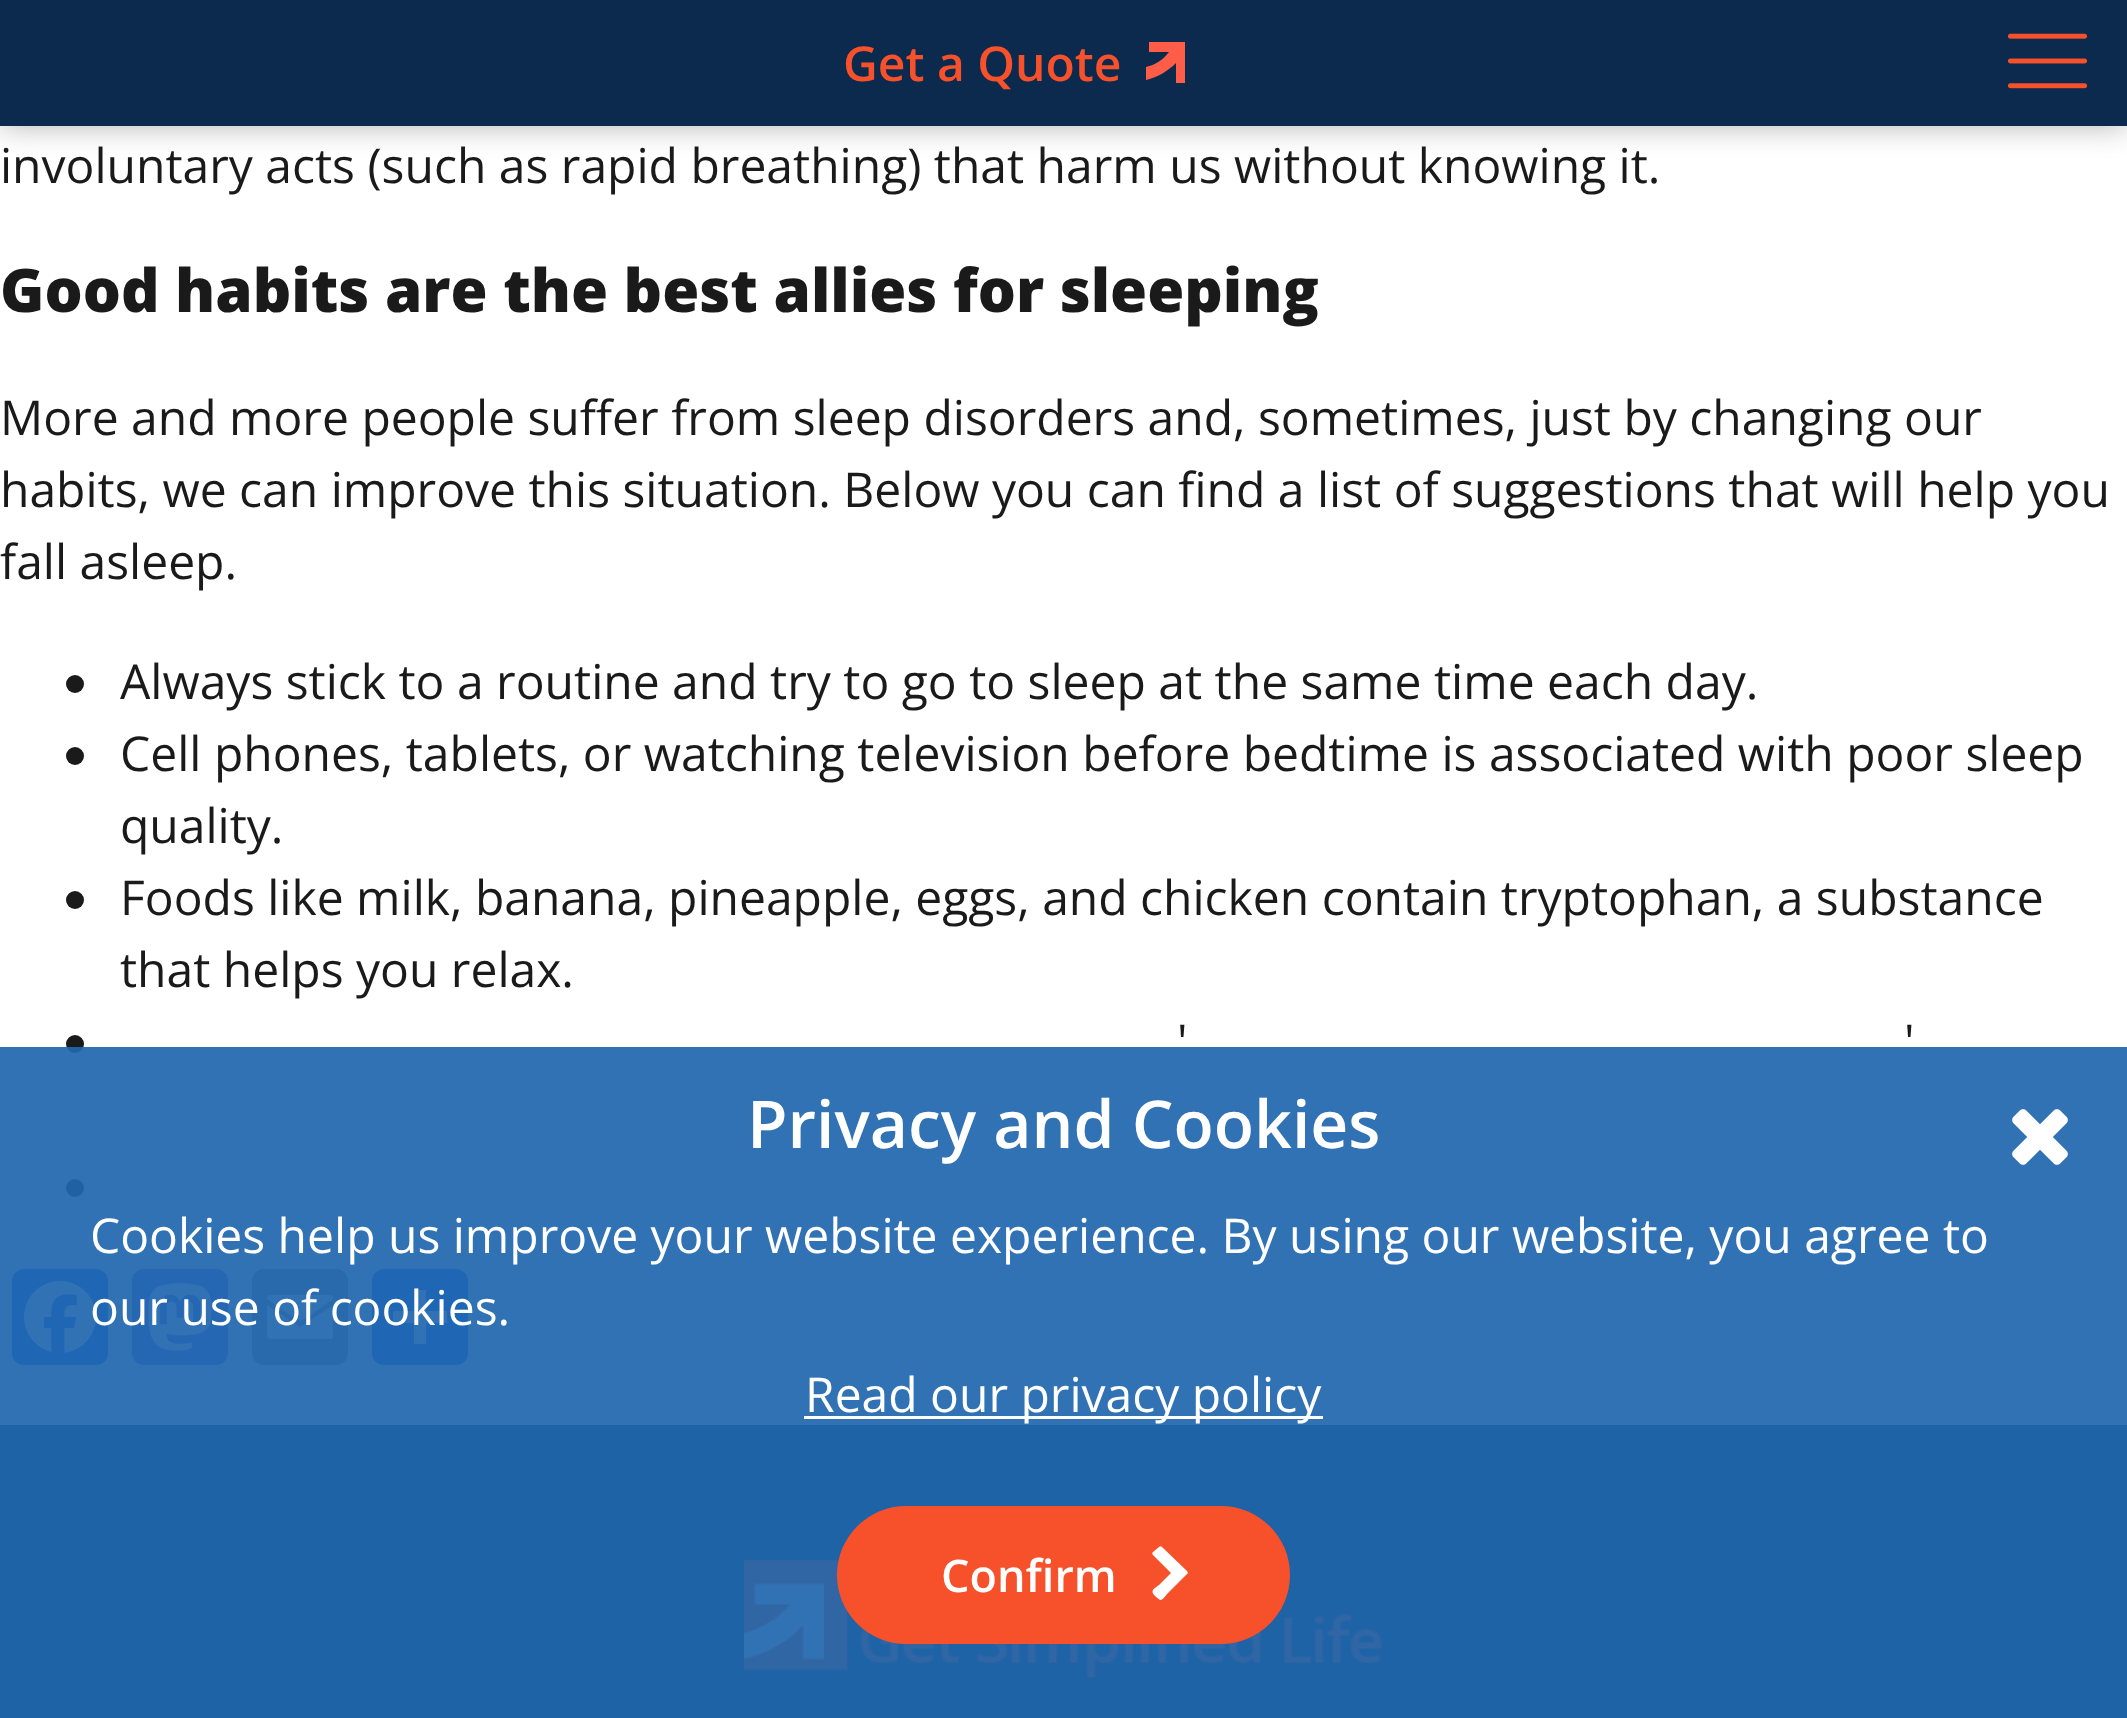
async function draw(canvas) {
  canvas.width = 2127
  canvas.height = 1718
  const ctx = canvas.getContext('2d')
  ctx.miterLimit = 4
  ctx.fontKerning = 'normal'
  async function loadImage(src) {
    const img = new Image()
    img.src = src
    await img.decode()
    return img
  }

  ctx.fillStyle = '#fff'
  ctx.fillRect(0, 0, 2127, 1718)
  ctx.fillStyle = '#0000004d'
  ctx.filter = 'blur(15px)'
  ctx.beginPath()
  ctx.rect(0, 0, 2127, 126)
  ctx.fill()
  ctx.filter = 'none'
  ctx.fillStyle = '#0c2a4e'
  ctx.fillRect(0, 0, 2127, 126)
  ctx.font = '600 48px Open Sans'
  ctx.fillStyle = '#f6512b'
  ctx.fillText('Get a Quote', 843, 81)
  ctx.save()
  ctx.beginPath()
  ctx.rect(1146, 42, 39, 42)
  ctx.clip()
  ctx.fillStyle = '#ff5d48'
  ctx.beginPath()
  ctx.moveTo(1149, 42)
  ctx.lineTo(1149, 52)
  ctx.lineTo(1169, 52)
  ctx.bezierCurveTo(1163, 60, 1155, 65, 1146, 67)
  ctx.lineTo(1146, 80)
  ctx.bezierCurveTo(1158, 77, 1168, 71, 1176, 63)
  ctx.lineTo(1176, 83)
  ctx.lineTo(1186, 83)
  ctx.lineTo(1186, 42)
  ctx.closePath()
  ctx.fill()
  ctx.restore()
  ctx.drawImage(await loadImage('image0.png'), 2007, 33, 81, 56)
  ctx.font = '48px Open Sans'
  ctx.fillStyle = '#1a1a1a'
  ctx.fillText('involuntary acts (such as rapid breathing) that harm us without knowing it.', 0, 183)
  ctx.font = '800 60px Open Sans'
  ctx.fillText('Good habits are the best allies for sleeping', 0, 312)
  ctx.font = '48px Open Sans'
  ctx.fillText('More and more people suffer from sleep disorders and, sometimes, just by changing our', 0, 435)
  ctx.fillText('habits, we can improve this situation. Below you can find a list of suggestions that will help you', 0, 507)
  ctx.fillText('fall asleep.', 0, 579)
  ctx.beginPath()
  ctx.arc(75, 684, 9, 0, 2 * Math.PI)
  ctx.fill()
  ctx.fillText('Always stick to a routine and try to go to sleep at the same time each day.', 120, 699)
  ctx.beginPath()
  ctx.arc(75, 756, 9, 0, 2 * Math.PI)
  ctx.fill()
  ctx.fillText('Cell phones, tablets, or watching television before bedtime is associated with poor sleep', 120, 771)
  ctx.fillText('quality.', 120, 843)
  ctx.beginPath()
  ctx.arc(75, 900, 9, 0, 2 * Math.PI)
  ctx.fill()
  ctx.fillText('Foods like milk, banana, pineapple, eggs, and chicken contain tryptophan, a substance', 120, 915)
  ctx.fillText('that helps you relax.', 120, 987)
  ctx.fillText('\'', 1177, 1059)
  ctx.fillText('\'', 1904, 1059)
  ctx.beginPath()
  ctx.arc(75, 1044, 9, 0, 2 * Math.PI)
  ctx.fill()
  ctx.beginPath()
  ctx.arc(75, 1188, 9, 0, 2 * Math.PI)
  ctx.fill()
  ctx.fillStyle = '#0866ff'
  ctx.beginPath()
  ctx.roundRect(12, 1269, 96, 96, 12)
  ctx.fill()
  ctx.drawImage(await loadImage('image1.png'), 24, 1281, 72, 72)
  ctx.fillStyle = '#6364ff'
  ctx.beginPath()
  ctx.roundRect(132, 1269, 96, 96, 12)
  ctx.fill()
  ctx.drawImage(await loadImage('image2.png'), 148, 1283, 64, 68)
  ctx.fillStyle = '#888990'
  ctx.beginPath()
  ctx.roundRect(252, 1269, 96, 96, 12)
  ctx.fill()
  ctx.fillStyle = '#fff'
  ctx.beginPath()
  ctx.moveTo(333, 1334)
  ctx.lineTo(333, 1305)
  ctx.lineTo(300, 1327)
  ctx.lineTo(267, 1305)
  ctx.lineTo(267, 1334)
  ctx.bezierCurveTo(267, 1338, 268, 1339, 272, 1339)
  ctx.lineTo(328, 1339)
  ctx.bezierCurveTo(332, 1339, 333, 1339, 333, 1334)
  ctx.moveTo(333, 1299)
  ctx.bezierCurveTo(333, 1296, 332, 1295, 328, 1295)
  ctx.lineTo(272, 1295)
  ctx.bezierCurveTo(268, 1295, 267, 1296, 267, 1299)
  ctx.lineTo(288, 1314)
  ctx.lineTo(300, 1321)
  ctx.lineTo(312, 1314)
  ctx.closePath()
  ctx.fill()
  ctx.fillStyle = '#0166ff'
  ctx.beginPath()
  ctx.roundRect(372, 1269, 96, 96, 12)
  ctx.fill()
  ctx.fillStyle = '#fff'
  ctx.fillRect(414, 1290, 12, 54)
  ctx.fillRect(393, 1311, 54, 12)
  ctx.fillStyle = '#0c2a4e'
  ctx.fillRect(0, 1425, 2127, 293)
  ctx.drawImage(await loadImage('image4.png'), 744, 1560, 638, 118)
  ctx.fillStyle = '#2167aeed'
  ctx.fillRect(0, 1047, 2127, 671)
  ctx.font = '600 66px Open Sans'
  ctx.fillStyle = '#fff'
  ctx.fillText('Privacy and Cookies', 747, 1148)
  ctx.drawImage(await loadImage('image3.png'), 2012, 1109, 56, 56)
  ctx.font = '48px Open Sans'
  ctx.fillText('Cookies help us improve your website experience. By using our website, you agree to', 90, 1253)
  ctx.fillText('our use of cookies.', 90, 1325)
  ctx.fillRect(804, 1416, 519, 3)
  ctx.fillText('Read our privacy policy', 805, 1412)
  ctx.fillStyle = '#f6512b'
  ctx.beginPath()
  ctx.roundRect(837, 1506, 453, 138, 69)
  ctx.fill()
  ctx.font = '600 45px Open Sans'
  ctx.fillStyle = '#fff'
  ctx.fillText('Confirm', 941, 1592)
  ctx.beginPath()
  ctx.moveTo(1187, 1574)
  ctx.lineTo(1170, 1591)
  ctx.bezierCurveTo(1160, 1601, 1163, 1603, 1154, 1595)
  ctx.bezierCurveTo(1150, 1590, 1155, 1588, 1159, 1585)
  ctx.lineTo(1171, 1573)
  ctx.lineTo(1153, 1555)
  ctx.bezierCurveTo(1152, 1554, 1152, 1553, 1153, 1552)
  ctx.lineTo(1159, 1547)
  ctx.bezierCurveTo(1160, 1546, 1161, 1546, 1162, 1547)
  ctx.lineTo(1187, 1571)
  ctx.bezierCurveTo(1188, 1572, 1188, 1574, 1187, 1574)
  ctx.closePath()
  ctx.fill()
}

draw(document.querySelector('canvas'))
